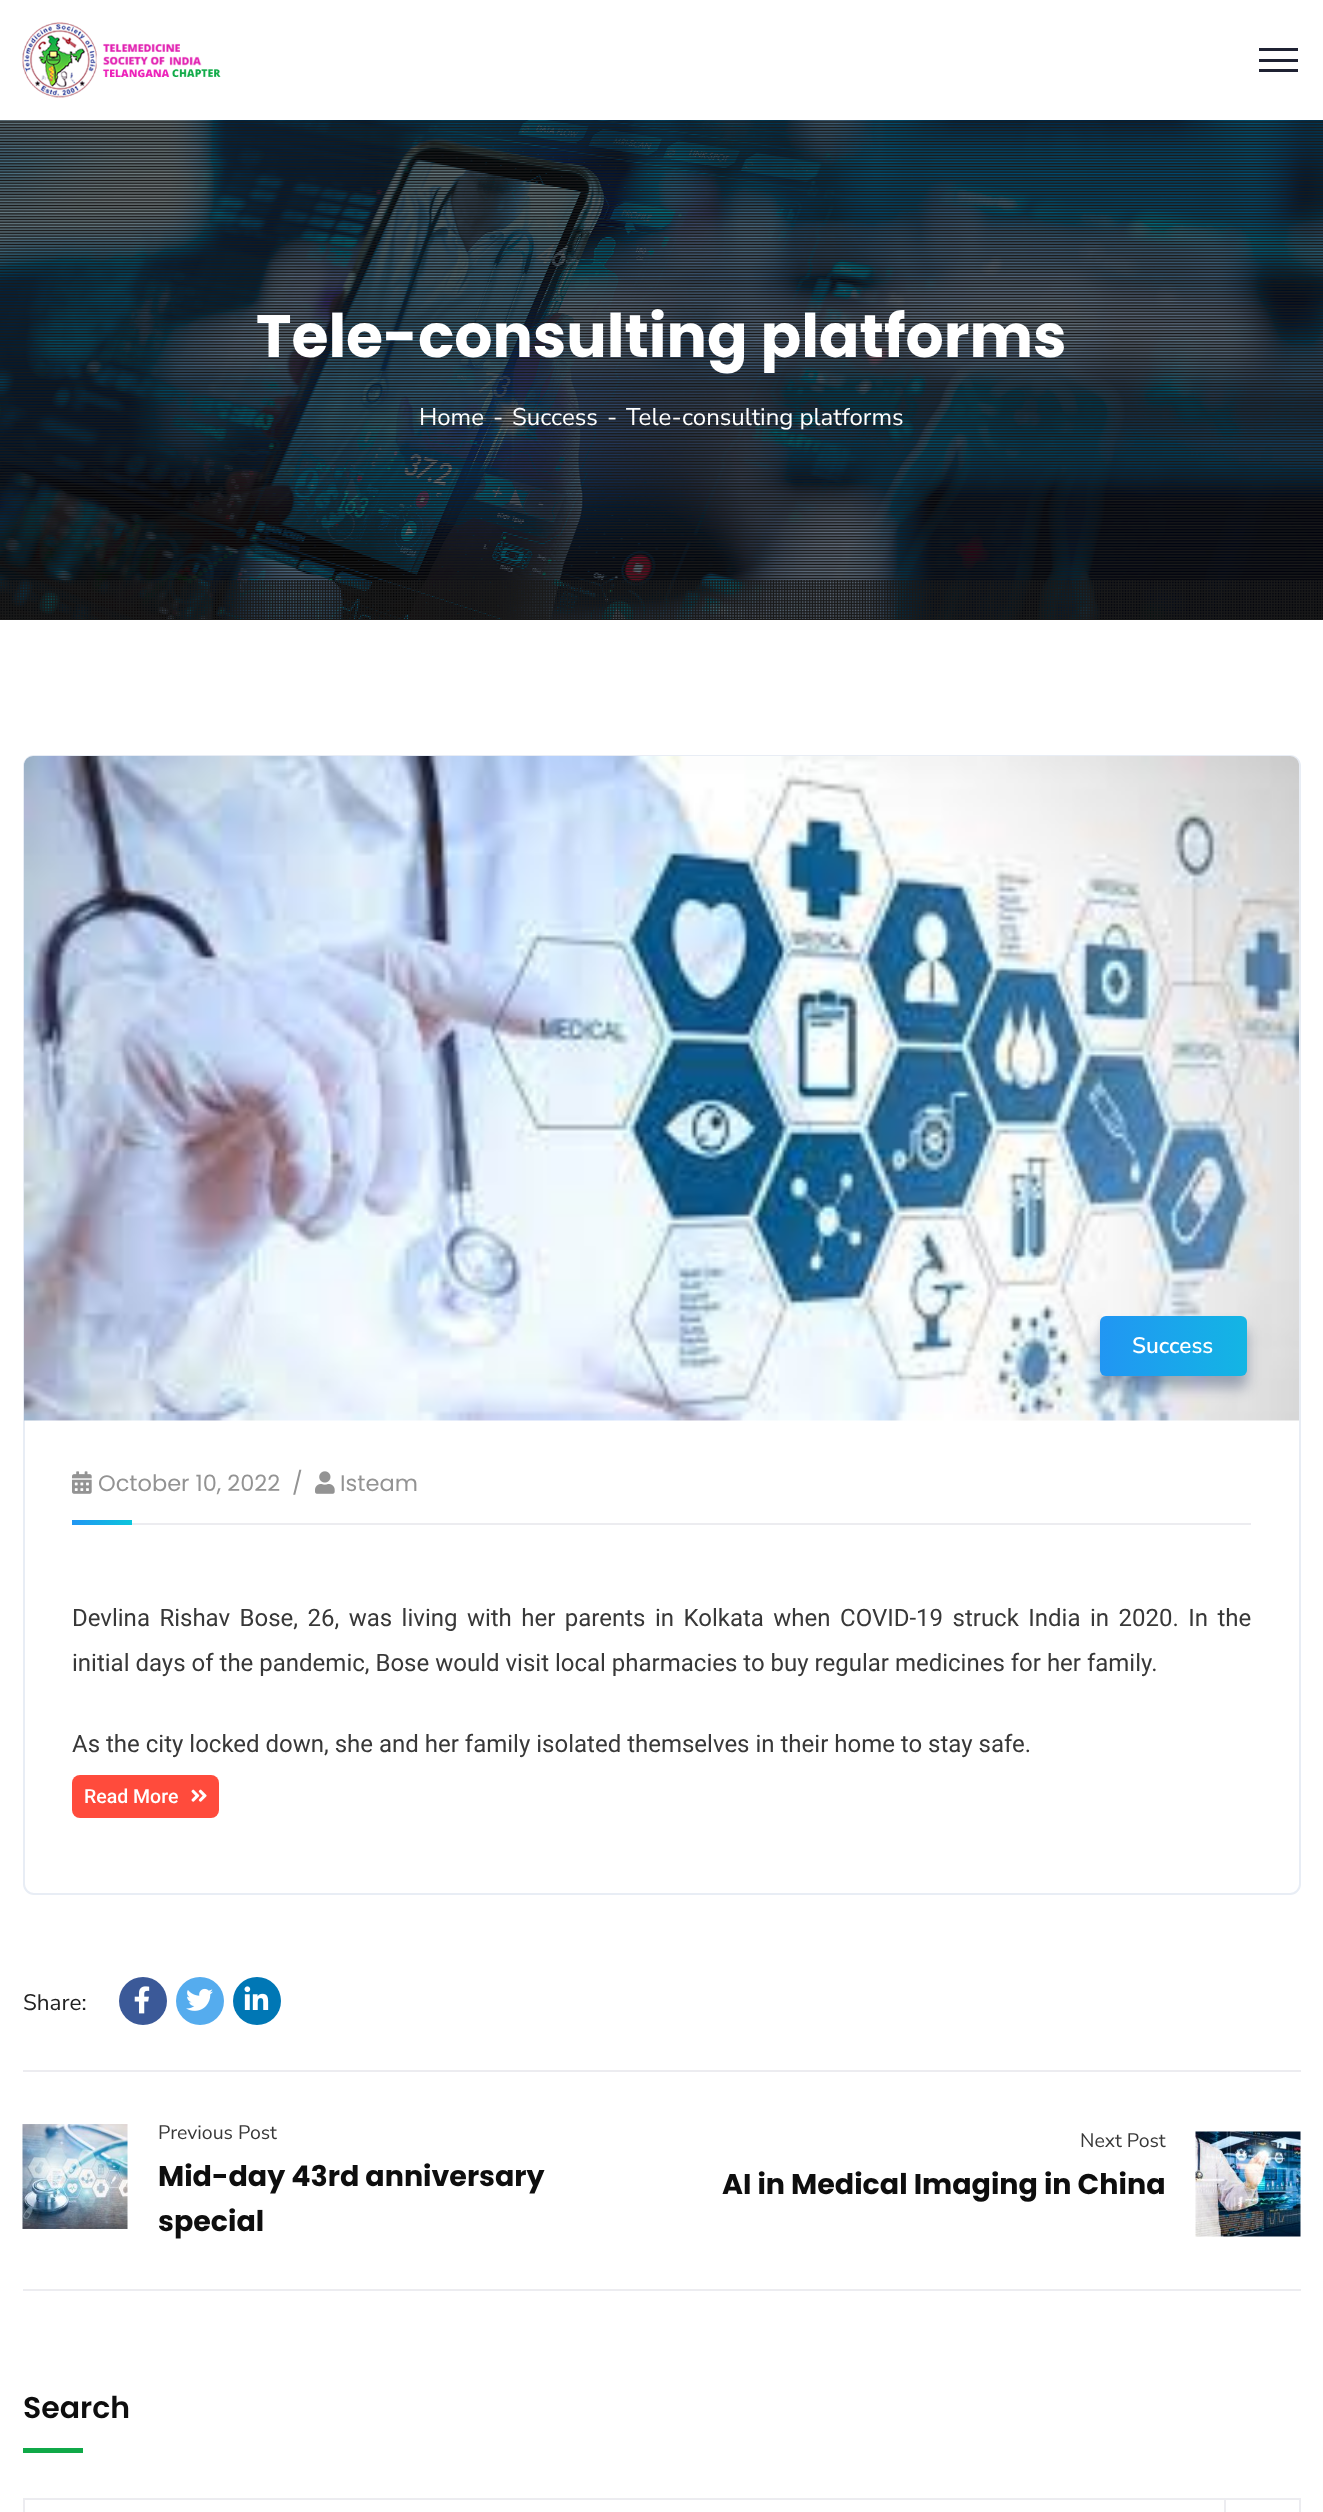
async function draw(canvas) {
  canvas.width = 1323
  canvas.height = 2512
  const ctx = canvas.getContext('2d')
  ctx.miterLimit = 4
  ctx.fontKerning = 'normal'
  async function loadImage(src) {
    const img = new Image()
    img.src = src
    await img.decode()
    return img
  }
  let gradient

  ctx.fillStyle = '#fff'
  ctx.fillRect(0, 0, 1323, 2512)
  ctx.drawImage(await loadImage('image0.png'), 22, 22, 199, 76)
  ctx.fillStyle = '#1f2233'
  ctx.fillRect(1259, 48, 39, 3)
  ctx.fillRect(1259, 59, 39, 3)
  ctx.fillRect(1259, 69, 39, 3)
  ctx.fillStyle = '#1a1a1a'
  ctx.fillRect(0, 120, 1323, 500)
  ctx.drawImage(await loadImage('image1.png'), 0, 120, 1323, 499)
  ctx.font = 'bold 60px Poppins'
  ctx.fillStyle = '#fff'
  ctx.fillText('Tele-consulting platforms', 256, 357)
  ctx.font = '24px Nunito Sans'
  ctx.fillText('Home', 419, 425)
  ctx.fillText('-', 493, 425)
  ctx.fillText('Success', 512, 425)
  ctx.fillText('-', 607, 425)
  ctx.fillText('Tele-consulting platforms', 626, 425)
  ctx.beginPath()
  ctx.roundRect(24, 756, 1276, 1138, 10)
  ctx.strokeStyle = '#e8edf5'
  ctx.lineWidth = 2
  ctx.stroke()
  ctx.drawImage(await loadImage('image2.png'), 24, 756, 1275, 665)
  ctx.fillStyle = '#0d225257'
  ctx.filter = 'blur(7px)'
  ctx.beginPath()
  ctx.roundRect(1100, 1328, 147, 60, 6)
  ctx.fill()
  ctx.filter = 'none'
  gradient = ctx.createLinearGradient(1100, 1346, 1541, 1346)
  gradient.addColorStop(0, '#2196f3')
  gradient.addColorStop(0.5, '#0cc5dc')
  gradient.addColorStop(1, '#2196f3')
  ctx.fillStyle = gradient
  ctx.beginPath()
  ctx.roundRect(1100, 1316, 147, 60, 6)
  ctx.fill()
  ctx.font = '600 22.5px Nunito Sans'
  ctx.fillStyle = '#fff'
  ctx.fillText('Success', 1132, 1353)
  ctx.fillStyle = '#ececf0'
  ctx.fillRect(132, 1523, 1119, 2)
  ctx.drawImage(await loadImage('image3.png'), 72, 1471, 20, 23)
  ctx.font = '22.5px Poppins'
  ctx.fillStyle = '#939393'
  ctx.fillText('October 10, 2022', 98, 1491)
  ctx.fillText('/', 292, 1491)
  ctx.drawImage(await loadImage('image4.png'), 315, 1471, 20, 23)
  ctx.fillText('Isteam', 340, 1491)
  gradient = ctx.createLinearGradient(72, 1522, 132, 1522)
  gradient.addColorStop(0, '#2196f3')
  gradient.addColorStop(1, '#0cc5dc')
  ctx.fillStyle = gradient
  ctx.fillRect(72, 1520, 60, 5)
  ctx.wordSpacing = '3.5px'
  ctx.font = '24px Roboto'
  ctx.fillStyle = '#383838'
  ctx.fillText('Devlina Rishav Bose, 26, was living with her parents in Kolkata when COVID-19 struck India in 2020. In the', 72, 1626)
  ctx.wordSpacing = '0px'
  ctx.fillText('initial days of the pandemic, Bose would visit local pharmacies to buy regular medicines for her family.', 72, 1671)
  ctx.fillText('As the city locked down, she and her family isolated themselves in their home to stay safe.', 72, 1752)
  ctx.fillStyle = '#ff4b3c'
  ctx.beginPath()
  ctx.roundRect(72, 1775, 147, 43, 8)
  ctx.fill()
  ctx.font = '500 19.5px Roboto'
  ctx.fillStyle = '#fff'
  ctx.fillText('Read More', 84, 1803)
  ctx.drawImage(await loadImage('image5.png'), 191, 1789, 16, 13)
  ctx.fillStyle = '#ececf0'
  ctx.fillRect(23, 2070, 1278, 2)
  ctx.font = '22.5px Nunito Sans'
  ctx.fillStyle = '#222'
  ctx.fillText('Share:', 23, 2010)
  ctx.fillStyle = '#3b5998'
  ctx.beginPath()
  ctx.arc(143, 2001, 24, 0, 2 * Math.PI)
  ctx.fill()
  ctx.drawImage(await loadImage('image6.png'), 134, 1986, 16, 28)
  ctx.fillStyle = '#55acee'
  ctx.beginPath()
  ctx.arc(200, 2001, 24, 0, 2 * Math.PI)
  ctx.fill()
  ctx.drawImage(await loadImage('image7.png'), 186, 1988, 27, 23)
  ctx.fillStyle = '#0077b5'
  ctx.beginPath()
  ctx.arc(257, 2001, 24, 0, 2 * Math.PI)
  ctx.fill()
  ctx.drawImage(await loadImage('image8.png'), 244, 1986, 25, 24)
  ctx.fillStyle = '#ececf0'
  ctx.fillRect(23, 2289, 1278, 2)
  ctx.drawImage(await loadImage('image9.png'), 22, 2124, 106, 105)
  ctx.font = '19.5px Nunito Sans'
  ctx.fillStyle = '#383838'
  ctx.fillText('Previous Post', 158, 2139)
  ctx.font = 'bold 28.5px Poppins'
  ctx.fillStyle = '#0e0e0e'
  ctx.fillText('Mid-day 43rd anniversary', 158, 2186)
  ctx.fillText('special', 158, 2231)
  ctx.font = '19.5px Nunito Sans'
  ctx.fillStyle = '#383838'
  ctx.fillText('Next Post', 1080, 2147)
  ctx.font = 'bold 28.5px Poppins'
  ctx.fillStyle = '#0e0e0e'
  ctx.fillText('AI in Medical Imaging in China', 722, 2194)
  ctx.drawImage(await loadImage('image10.png'), 1195, 2131, 106, 106)
  ctx.font = '600 30px Poppins'
  ctx.fillText('Search', 23, 2418)
  ctx.fillStyle = '#10a948'
  ctx.fillRect(23, 2448, 60, 5)
  ctx.strokeStyle = '#ececf0'
  ctx.strokeRect(24, 2499, 1276, 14)
  ctx.fillStyle = '#ececf0'
  ctx.fillRect(1224, 2498, 2, 14)
}

draw(document.querySelector('canvas'))
